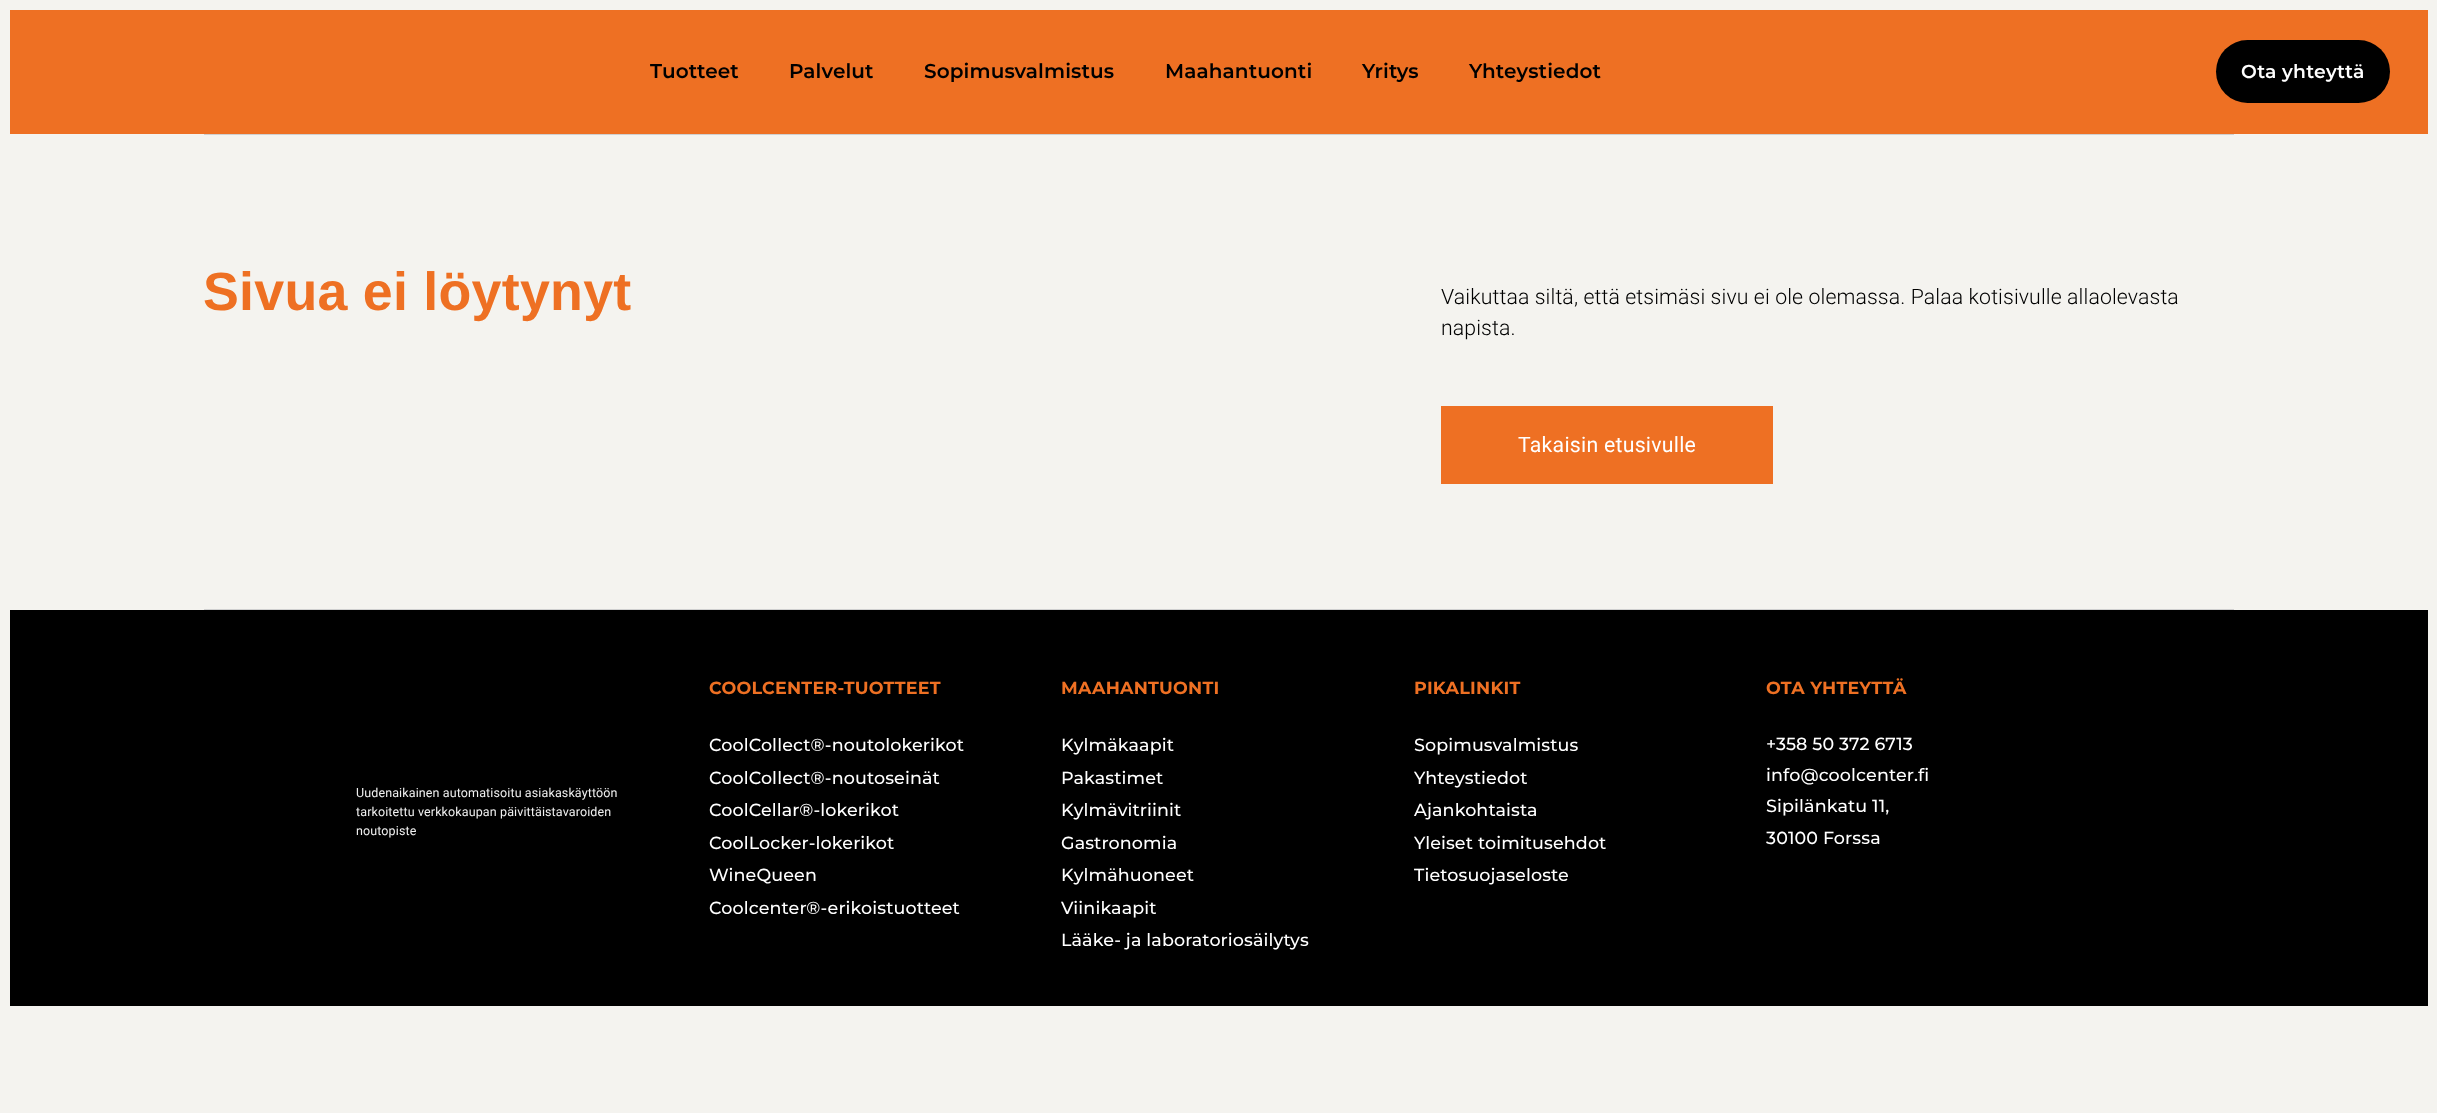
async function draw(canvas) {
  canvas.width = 2437
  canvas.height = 1113
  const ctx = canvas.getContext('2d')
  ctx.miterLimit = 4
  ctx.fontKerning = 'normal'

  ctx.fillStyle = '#f4f3ef'
  ctx.fillRect(0, 0, 2437, 1113)
  ctx.fillStyle = '#ee7023'
  ctx.fillRect(10, 10, 2418, 124)
  ctx.letterSpacing = '0.12px'
  ctx.font = '600 20px Montserrat'
  ctx.fillStyle = '#000'
  ctx.fillText('Tuotteet', 650, 78)
  ctx.fillText('Palvelut', 789, 78)
  ctx.fillText('Sopimusvalmistus', 924, 78)
  ctx.fillText('Maahantuonti', 1165, 78)
  ctx.fillText('Yritys', 1362, 78)
  ctx.fillText('Yhteystiedot', 1469, 78)
  ctx.beginPath()
  ctx.roundRect(2216, 40, 174, 63, 31.5)
  ctx.fill()
  ctx.letterSpacing = '0.25px'
  ctx.font = '600 18.75px Montserrat'
  ctx.fillStyle = '#fff'
  ctx.fillText('Ota yhteyttä', 2241, 78)
  ctx.fillStyle = '#cfcfcf'
  ctx.fillRect(204, 134, 2030, 1)
  ctx.fillRect(204, 609, 2030, 1)
  ctx.font = 'bold 53.75px Liberation Sans'
  ctx.fillStyle = '#ee7023'
  ctx.fillText('Sivua ei löytynyt', 203, 310)
  ctx.letterSpacing = '0.12px'
  ctx.font = '300 21.25px Roboto'
  ctx.fillStyle = '#000'
  ctx.fillText('Vaikuttaa siltä, että etsimäsi sivu ei ole olemassa. Palaa kotisivulle allaolevasta', 1441, 304)
  ctx.fillText('napista.', 1441, 335)
  ctx.fillStyle = '#ee7023'
  ctx.fillRect(1441, 406, 332, 78)
  ctx.letterSpacing = '0.25px'
  ctx.font = '21.25px Roboto'
  ctx.fillStyle = '#fff'
  ctx.fillText('Takaisin etusivulle', 1518, 452)
  ctx.fillStyle = '#000'
  ctx.fillRect(10, 610, 2418, 396)
  ctx.letterSpacing = '0.12px'
  ctx.font = '12.5px Roboto'
  ctx.fillStyle = '#f0f0f0'
  ctx.fillText('Uudenaikainen automatisoitu asiakaskäyttöön', 356, 797)
  ctx.fillText('tarkoitettu verkkokaupan päivittäistavaroiden', 356, 816)
  ctx.fillText('noutopiste', 356, 835)
  ctx.letterSpacing = '0.25px'
  ctx.font = 'bold 17.5px Montserrat'
  ctx.fillStyle = '#ee7023'
  ctx.fillText('COOLCENTER-TUOTTEET', 709, 694)
  ctx.letterSpacing = '0.12px'
  ctx.font = '500 17.5px Montserrat'
  ctx.fillStyle = '#fff'
  ctx.fillText('CoolCollect®-noutolokerikot', 709, 751)
  ctx.fillText('CoolCollect®-noutoseinät', 709, 784)
  ctx.fillText('CoolCellar®-lokerikot', 709, 816)
  ctx.fillText('CoolLocker-lokerikot', 709, 849)
  ctx.fillText('WineQueen', 709, 881)
  ctx.fillText('Coolcenter®-erikoistuotteet', 709, 914)
  ctx.letterSpacing = '0.25px'
  ctx.font = 'bold 17.5px Montserrat'
  ctx.fillStyle = '#ee7023'
  ctx.fillText('MAAHANTUONTI', 1061, 694)
  ctx.letterSpacing = '0.12px'
  ctx.font = '500 17.5px Montserrat'
  ctx.fillStyle = '#fff'
  ctx.fillText('Kylmäkaapit', 1061, 751)
  ctx.fillText('Pakastimet', 1061, 784)
  ctx.fillText('Kylmävitriinit', 1061, 816)
  ctx.fillText('Gastronomia', 1061, 849)
  ctx.fillText('Kylmähuoneet', 1061, 881)
  ctx.fillText('Viinikaapit', 1061, 914)
  ctx.fillText('Lääke- ja laboratoriosäilytys', 1061, 946)
  ctx.letterSpacing = '0.25px'
  ctx.font = 'bold 17.5px Montserrat'
  ctx.fillStyle = '#ee7023'
  ctx.fillText('PIKALINKIT', 1414, 694)
  ctx.letterSpacing = '0.12px'
  ctx.font = '500 17.5px Montserrat'
  ctx.fillStyle = '#fff'
  ctx.fillText('Sopimusvalmistus', 1414, 751)
  ctx.fillText('Yhteystiedot', 1414, 784)
  ctx.fillText('Ajankohtaista', 1414, 816)
  ctx.fillText('Yleiset toimitusehdot', 1414, 849)
  ctx.fillText('Tietosuojaseloste', 1414, 881)
  ctx.letterSpacing = '0.25px'
  ctx.font = 'bold 17.5px Montserrat'
  ctx.fillStyle = '#ee7023'
  ctx.fillText('OTA YHTEYTTÄ', 1766, 694)
  ctx.letterSpacing = '0.12px'
  ctx.font = '500 17.5px Montserrat'
  ctx.fillStyle = '#fff'
  ctx.fillText('+358 50 372 6713', 1766, 750)
  ctx.fillText('info@coolcenter.fi', 1766, 781)
  ctx.fillText('Sipilänkatu 11,', 1766, 812)
  ctx.fillText('30100 Forssa', 1766, 844)
}

draw(document.querySelector('canvas'))
